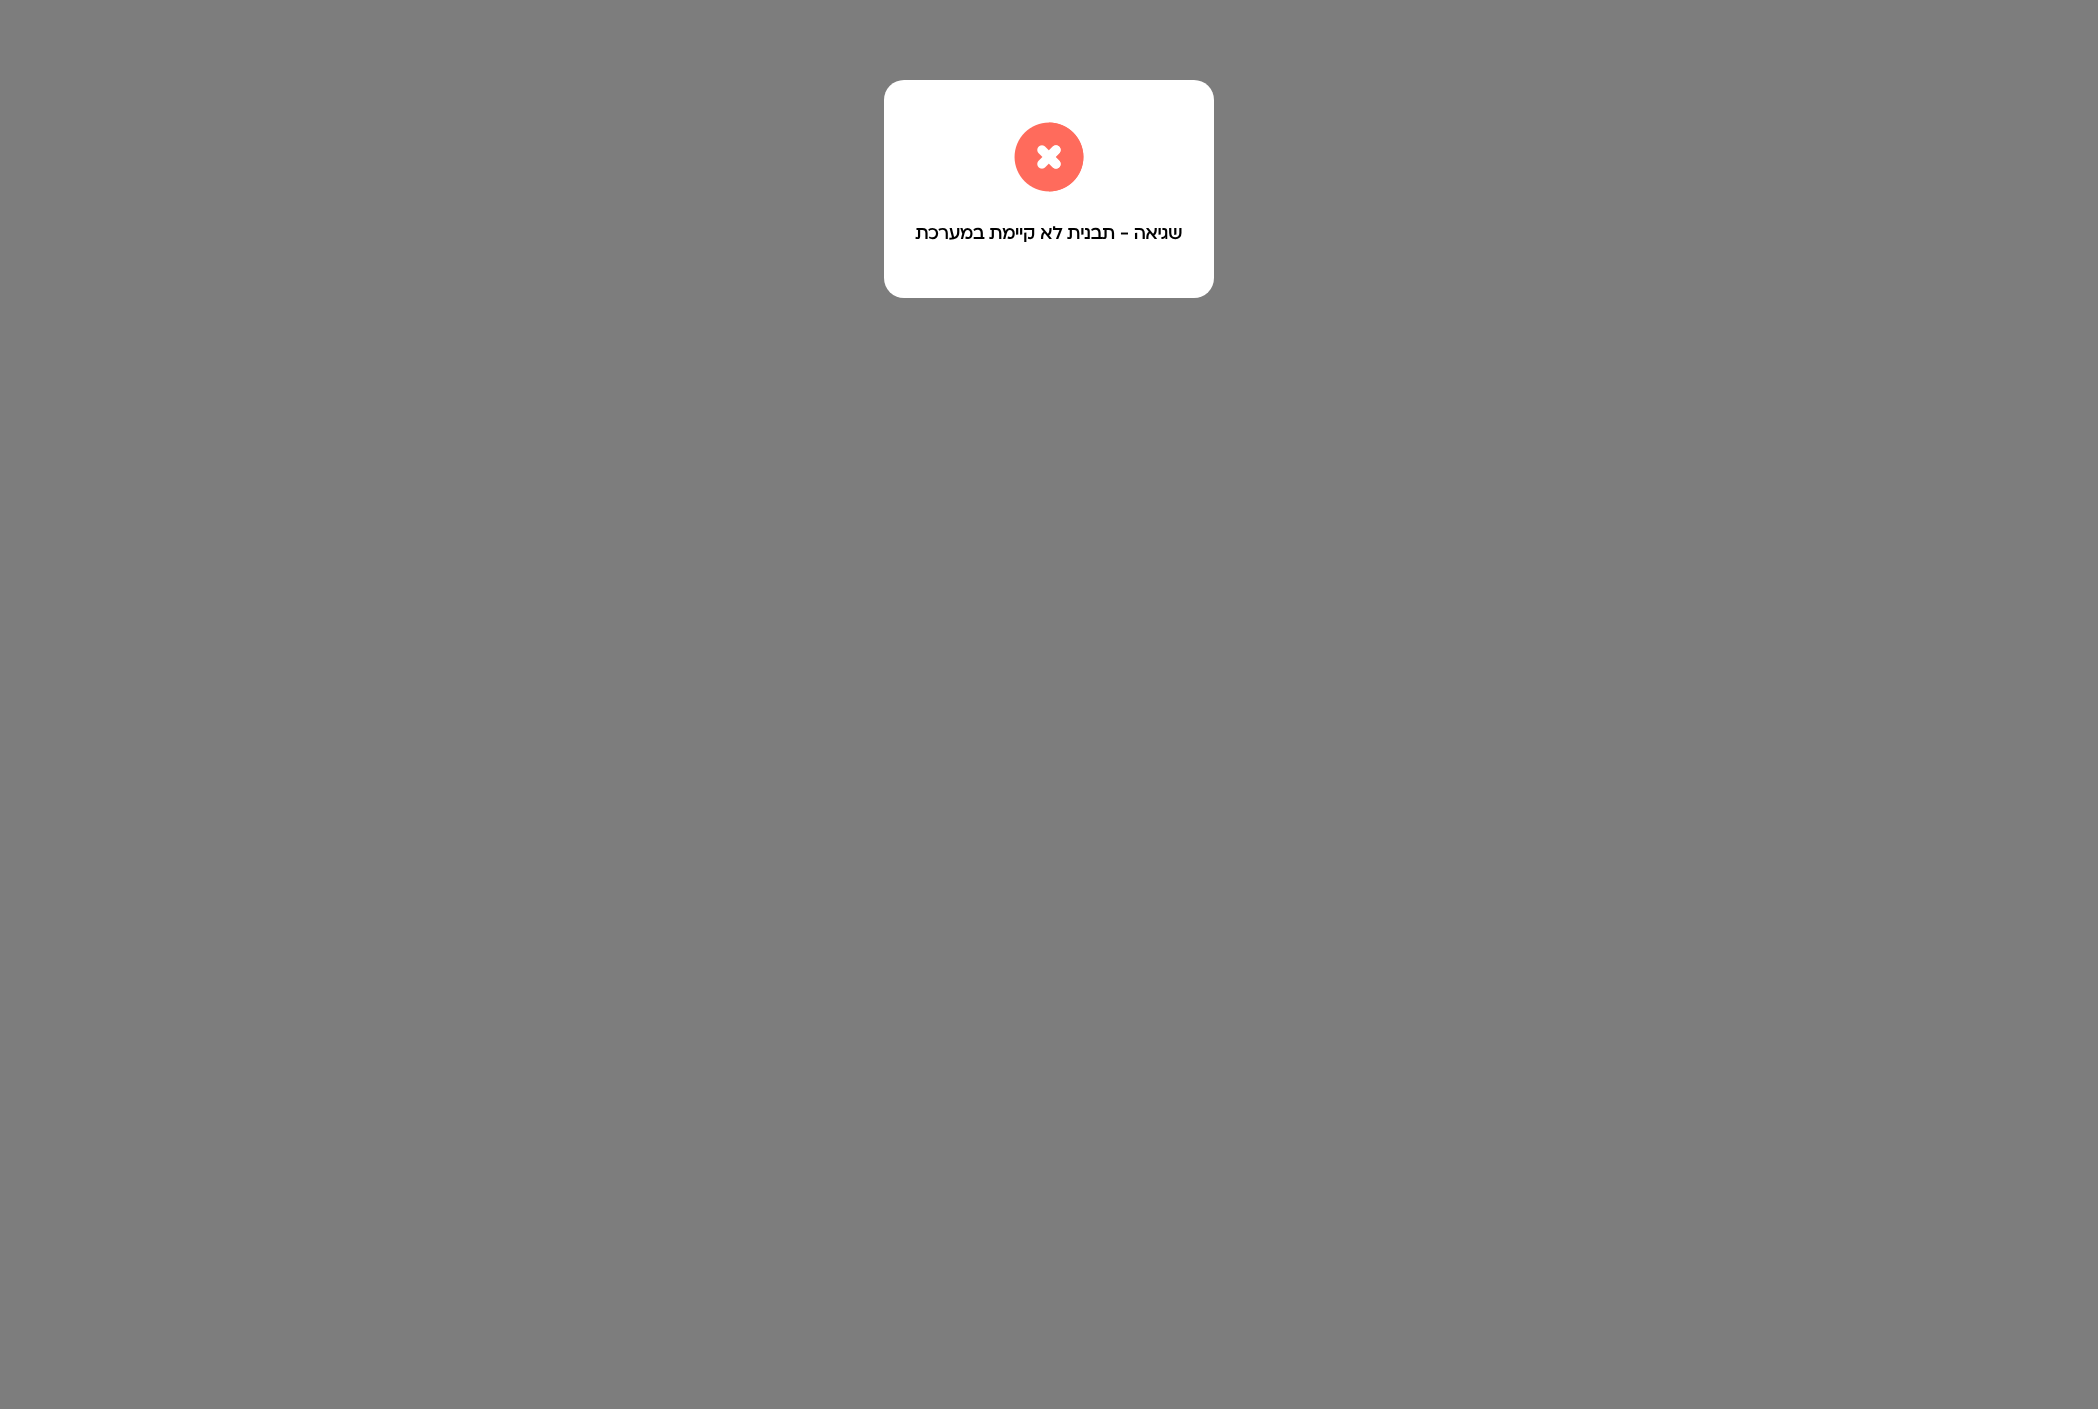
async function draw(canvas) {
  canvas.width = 2098
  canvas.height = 1409
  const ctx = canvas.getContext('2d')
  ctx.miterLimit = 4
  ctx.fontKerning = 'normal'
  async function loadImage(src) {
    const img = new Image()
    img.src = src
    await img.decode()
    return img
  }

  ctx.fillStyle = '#7d7d7d'
  ctx.fillRect(0, 0, 2098, 1409)
  ctx.fillStyle = '#fff'
  ctx.beginPath()
  ctx.roundRect(884, 80, 330, 218, 20)
  ctx.fill()
  ctx.drawImage(await loadImage('image0.png'), 1014, 122, 70, 70)
  ctx.direction = 'rtl'
  ctx.font = 'bold 20px "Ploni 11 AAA"'
  ctx.fillStyle = '#000'
  ctx.fillText('שגיאה - תבנית לא קיימת במערכת', 1182, 239)
}

draw(document.querySelector('canvas'))
